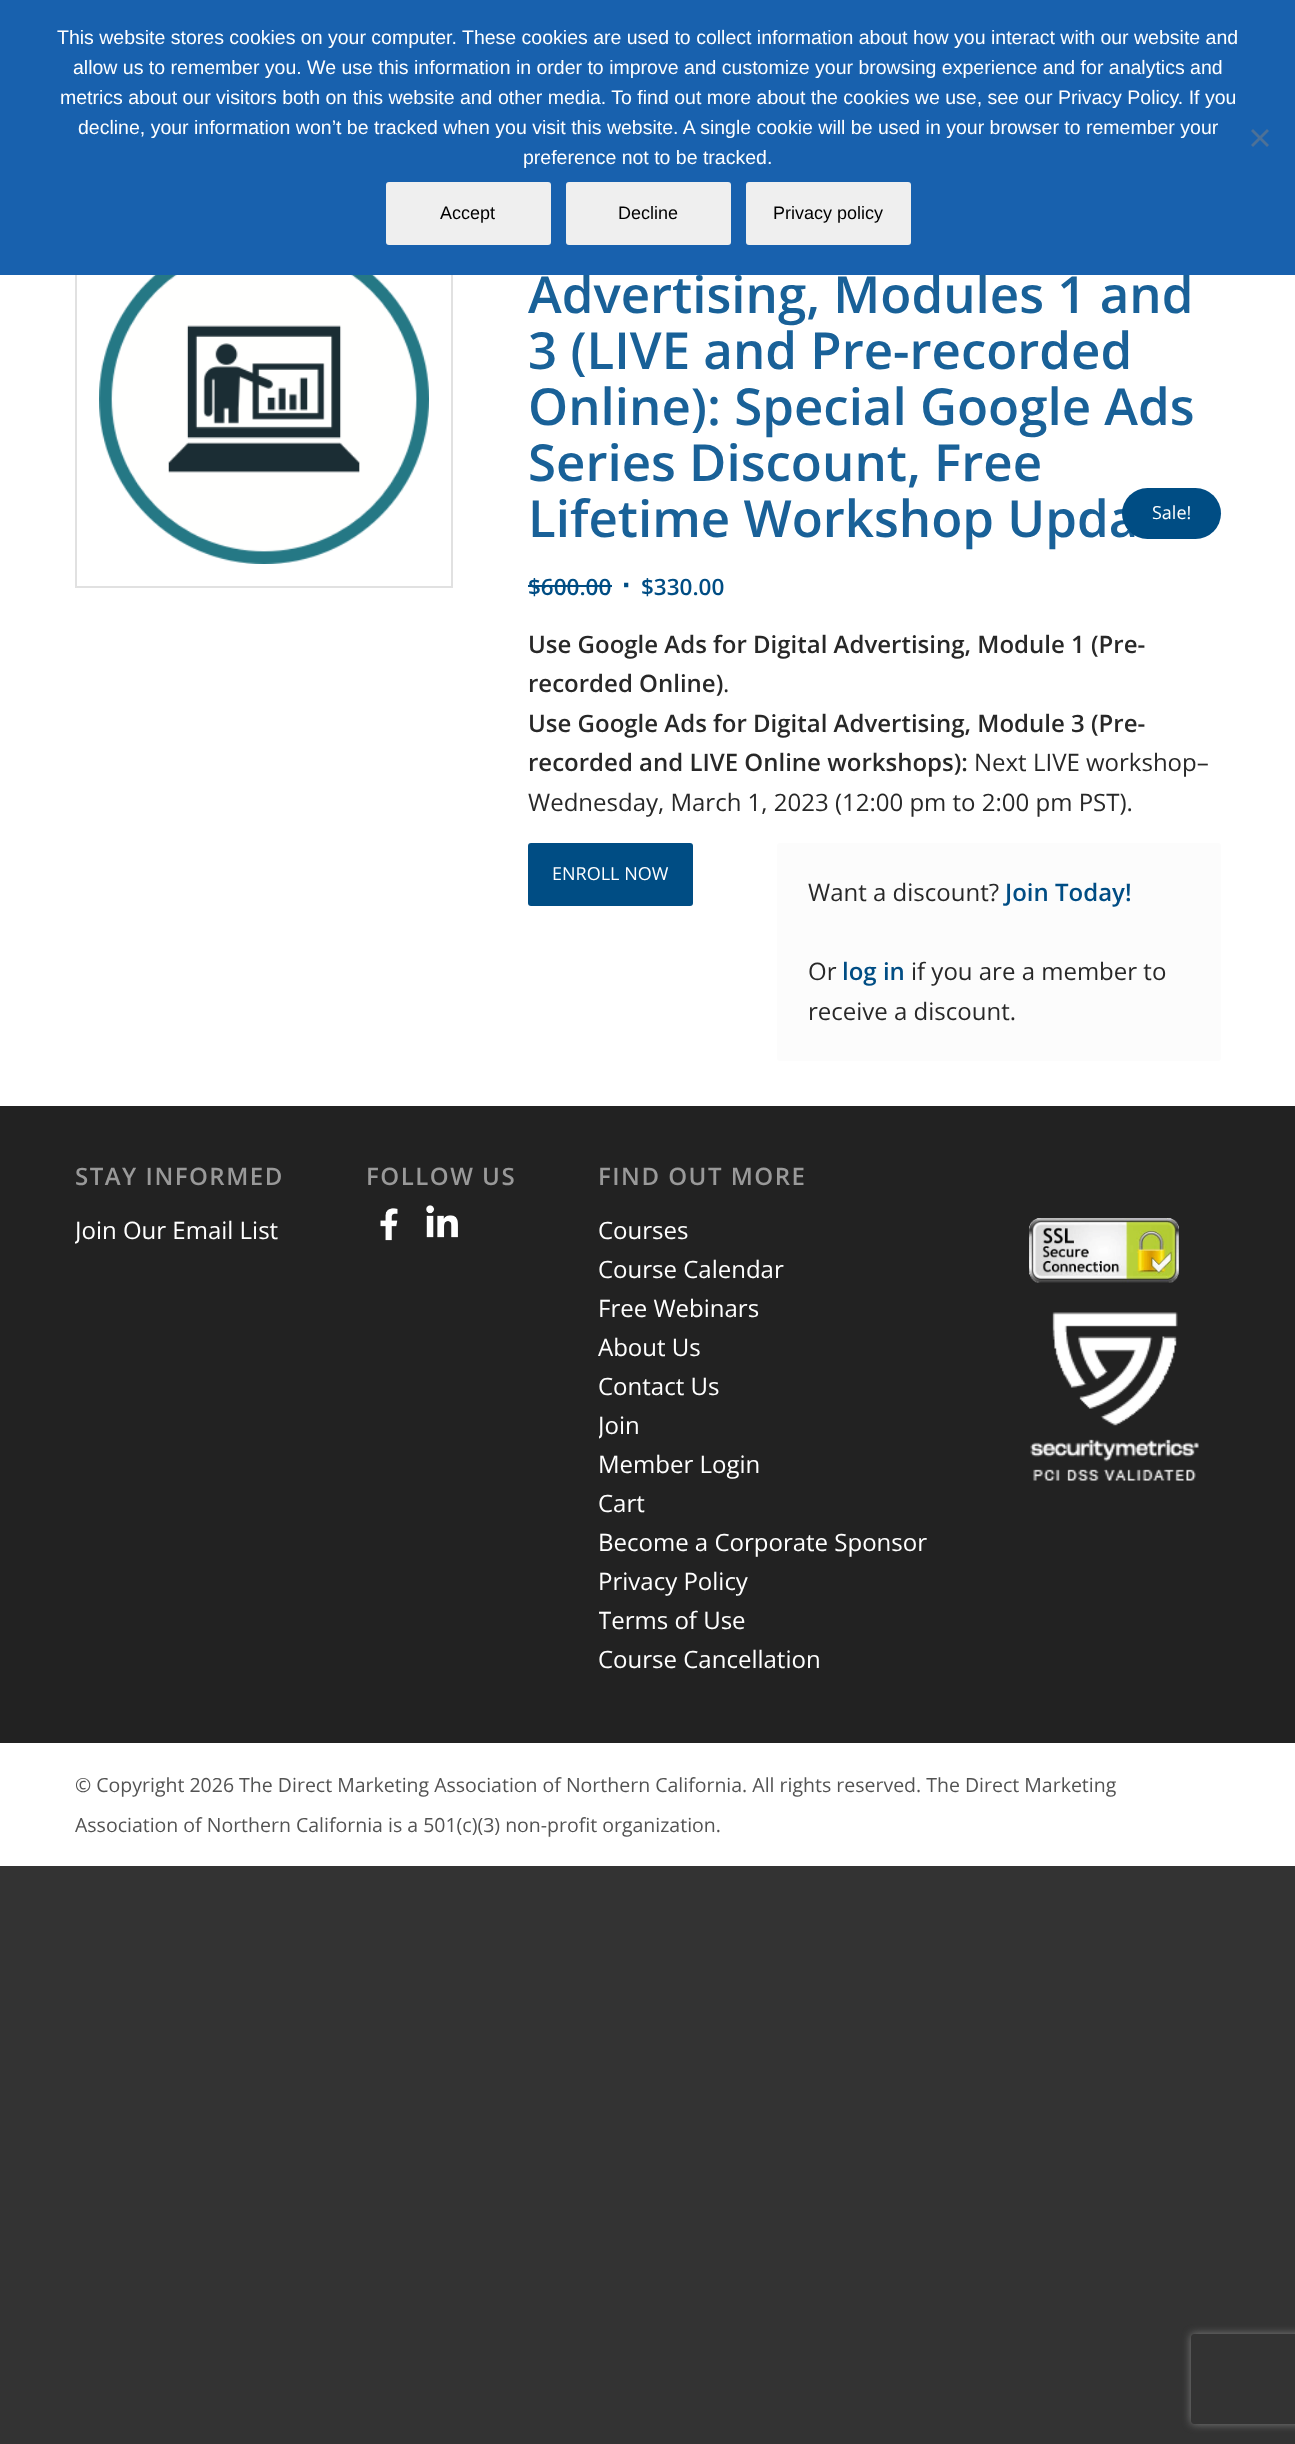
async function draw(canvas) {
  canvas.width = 1295
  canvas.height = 2444
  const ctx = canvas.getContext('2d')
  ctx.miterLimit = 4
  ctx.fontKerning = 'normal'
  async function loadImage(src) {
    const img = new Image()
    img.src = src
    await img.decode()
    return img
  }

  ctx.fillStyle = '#333'
  ctx.fillRect(0, 0, 1295, 2444)
  ctx.fillStyle = '#fff'
  ctx.fillRect(0, 275, 1295, 831)
  ctx.font = '600 51px Open Sans'
  ctx.fillStyle = '#196198'
  ctx.fillText('Advertising, Modules 1 and', 528, 313)
  ctx.strokeStyle = '#e1e1e1'
  ctx.lineWidth = 2
  ctx.strokeRect(76, 211, 376, 376)
  ctx.fillStyle = '#1861ae'
  ctx.fillRect(0, 0, 1295, 275)
  ctx.font = '19.5px Liberation Sans'
  ctx.fillStyle = '#fff'
  ctx.fillText('This website stores cookies on your computer. These cookies are used to collect information about how you interact with our website and', 57, 44)
  ctx.fillText('allow us to remember you. We use this information in order to improve and customize your browsing experience and for analytics and', 73, 74)
  ctx.fillText('metrics about our visitors both on this website and other media. To find out more about the cookies we use, see our Privacy Policy. If you', 60, 104)
  ctx.fillText('decline, your information won’t be tracked when you visit this website. A single cookie will be used in your browser to remember your', 78, 134)
  ctx.fillText('preference not to be tracked.', 523, 164)
  ctx.fillStyle = '#4c7197'
  ctx.beginPath()
  ctx.moveTo(1267, 129)
  ctx.lineTo(1269, 131)
  ctx.lineTo(1253, 147)
  ctx.lineTo(1251, 145)
  ctx.closePath()
  ctx.fill()
  ctx.beginPath()
  ctx.moveTo(1251, 131)
  ctx.lineTo(1253, 129)
  ctx.lineTo(1269, 145)
  ctx.lineTo(1267, 147)
  ctx.closePath()
  ctx.fill()
  ctx.fillStyle = '#efefef'
  ctx.beginPath()
  ctx.roundRect(386, 182, 165, 63, 3)
  ctx.fill()
  ctx.font = '18px Liberation Sans'
  ctx.fillStyle = '#000'
  ctx.fillText('Accept', 440, 219)
  ctx.fillStyle = '#efefef'
  ctx.beginPath()
  ctx.roundRect(566, 182, 165, 63, 3)
  ctx.fill()
  ctx.fillStyle = '#000'
  ctx.fillText('Decline', 618, 219)
  ctx.fillStyle = '#efefef'
  ctx.beginPath()
  ctx.roundRect(746, 182, 165, 63, 3)
  ctx.fill()
  ctx.fillStyle = '#000'
  ctx.fillText('Privacy policy', 773, 219)
  ctx.font = '600 51px Open Sans'
  ctx.fillStyle = '#196198'
  ctx.fillText('3 (LIVE and Pre-recorded', 528, 369)
  ctx.fillText('Online): Special Google Ads', 528, 425)
  ctx.fillText('Series Discount, Free', 528, 481)
  ctx.fillText('Lifetime Workshop Upda', 528, 537)
  ctx.font = '600 22.5px Open Sans'
  ctx.fillStyle = '#004d84'
  ctx.fillText('$600.00', 528, 595)
  ctx.fillRect(528, 585, 84, 2)
  ctx.font = 'bold 30px Liberation Sans'
  ctx.fillText('∙', 622, 595)
  ctx.font = '600 22.5px Open Sans'
  ctx.fillText('$330.00', 641, 595)
  ctx.font = '600 24px Open Sans'
  ctx.fillStyle = '#282828'
  ctx.fillText('Use Google Ads for Digital Advertising, Module 1 (Pre-', 528, 653)
  ctx.fillText('recorded Online)', 528, 692)
  ctx.font = '24px Open Sans'
  ctx.fillText('.', 723, 692)
  ctx.font = '600 24px Open Sans'
  ctx.fillText('Use Google Ads for Digital Advertising, Module 3 (Pre-', 528, 732)
  ctx.fillText('recorded and LIVE Online workshops):', 528, 771)
  ctx.font = '24px Open Sans'
  ctx.fillText('Next LIVE workshop–', 974, 771)
  ctx.fillText('Wednesday, March 1, 2023 (12:00 pm to 2:00 pm PST).', 528, 811)
  ctx.fillStyle = '#004d84'
  ctx.beginPath()
  ctx.roundRect(528, 843, 165, 63, 3)
  ctx.fill()
  ctx.font = '18px Open Sans'
  ctx.fillStyle = '#fff'
  ctx.fillText('ENROLL NOW', 552, 880)
  ctx.fillStyle = '#fcfcfc'
  ctx.beginPath()
  ctx.roundRect(777, 843, 444, 218, 3)
  ctx.fill()
  ctx.font = '24px Open Sans'
  ctx.fillStyle = '#282828'
  ctx.fillText('Want a discount?', 808, 901)
  ctx.font = '600 24px Open Sans'
  ctx.fillStyle = '#004d84'
  ctx.fillText('Join Today!', 1005, 901)
  ctx.font = '24px Open Sans'
  ctx.fillStyle = '#282828'
  ctx.fillText('Or', 808, 980)
  ctx.font = '600 24px Open Sans'
  ctx.fillStyle = '#004d84'
  ctx.fillText('log in', 842, 980)
  ctx.font = '24px Open Sans'
  ctx.fillStyle = '#282828'
  ctx.fillText('if you are a member to', 911, 980)
  ctx.fillText('receive a discount.', 808, 1020)
  ctx.drawImage(await loadImage('image0.png'), 99, 275, 330, 289)
  ctx.fillStyle = '#004d84'
  ctx.beginPath()
  ctx.roundRect(1122, 488, 99, 51, 25.5)
  ctx.fill()
  ctx.font = '18px Open Sans'
  ctx.fillStyle = '#fff'
  ctx.fillText('Sale!', 1152, 519)
  ctx.fillStyle = '#222'
  ctx.fillRect(0, 1106, 1295, 637)
  ctx.letterSpacing = '1.5px'
  ctx.font = '600 24px Open Sans'
  ctx.fillStyle = '#999'
  ctx.fillText('STAY INFORMED', 75, 1185)
  ctx.save()
  ctx.beginPath()
  ctx.rect(75, 1143, 209, 128)
  ctx.clip()
  ctx.letterSpacing = '0px'
  ctx.font = '24px Open Sans'
  ctx.fillStyle = '#fff'
  ctx.fillText('Join Our Email List', 75, 1239)
  ctx.restore()
  ctx.fillText('FOLLOW US', 366, 1185)
  ctx.drawImage(await loadImage('image1.png'), 380, 1208, 18, 33)
  ctx.drawImage(await loadImage('image2.png'), 426, 1205, 32, 33)
  ctx.fillText('FIND OUT MORE', 598, 1185)
  ctx.letterSpacing = '0px'
  ctx.font = '24px Open Sans'
  ctx.fillStyle = '#fff'
  ctx.fillText('Courses', 598, 1239)
  ctx.fillText('Course Calendar', 598, 1278)
  ctx.fillText('Free Webinars', 598, 1317)
  ctx.fillText('About Us', 598, 1356)
  ctx.fillText('Contact Us', 598, 1395)
  ctx.save()
  ctx.beginPath()
  ctx.rect(599, 1143, 328, 557)
  ctx.clip()
  ctx.fillText('Join', 598, 1434)
  ctx.restore()
  ctx.fillText('Member Login', 598, 1473)
  ctx.fillText('Cart', 598, 1512)
  ctx.fillText('Become a Corporate Sponsor', 598, 1551)
  ctx.fillText('Privacy Policy', 598, 1590)
  ctx.save()
  ctx.beginPath()
  ctx.rect(599, 1143, 328, 557)
  ctx.clip()
  ctx.fillText('Terms of Use', 598, 1629)
  ctx.restore()
  ctx.fillText('Course Cancellation', 598, 1668)
  ctx.drawImage(await loadImage('image3.png'), 1029, 1218, 150, 65)
  ctx.drawImage(await loadImage('image4.png'), 1030, 1312, 169, 169)
  ctx.fillRect(0, 1743, 1295, 123)
  ctx.font = '19.5px Open Sans'
  ctx.fillStyle = '#535353'
  ctx.fillText('© Copyright 2026 The Direct Marketing Association of Northern California. All rights reserved. The Direct Marketing', 75, 1792)
  ctx.fillText('Association of Northern California is a 501(c)(3) non-profit organization.', 75, 1832)
  ctx.save()
  ctx.beginPath()
  ctx.moveTo(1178, 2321)
  ctx.lineTo(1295, 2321)
  ctx.lineTo(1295, 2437)
  ctx.lineTo(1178, 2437)
  ctx.closePath()
  ctx.moveTo(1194, 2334)
  ctx.lineTo(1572, 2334)
  ctx.bezierCurveTo(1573.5, 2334, 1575, 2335.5, 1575, 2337)
  ctx.lineTo(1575, 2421)
  ctx.bezierCurveTo(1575, 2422.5, 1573.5, 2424, 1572, 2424)
  ctx.lineTo(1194, 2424)
  ctx.bezierCurveTo(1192.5, 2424, 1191, 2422.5, 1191, 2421)
  ctx.lineTo(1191, 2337)
  ctx.bezierCurveTo(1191, 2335.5, 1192.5, 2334, 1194, 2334)
  ctx.closePath()
  ctx.clip('evenodd')
  ctx.fillStyle = '#808080'
  ctx.filter = 'blur(4px)'
  ctx.beginPath()
  ctx.roundRect(1191, 2334, 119, 90, 3)
  ctx.fill()
  ctx.filter = 'none'
  ctx.restore()
}

draw(document.querySelector('canvas'))
